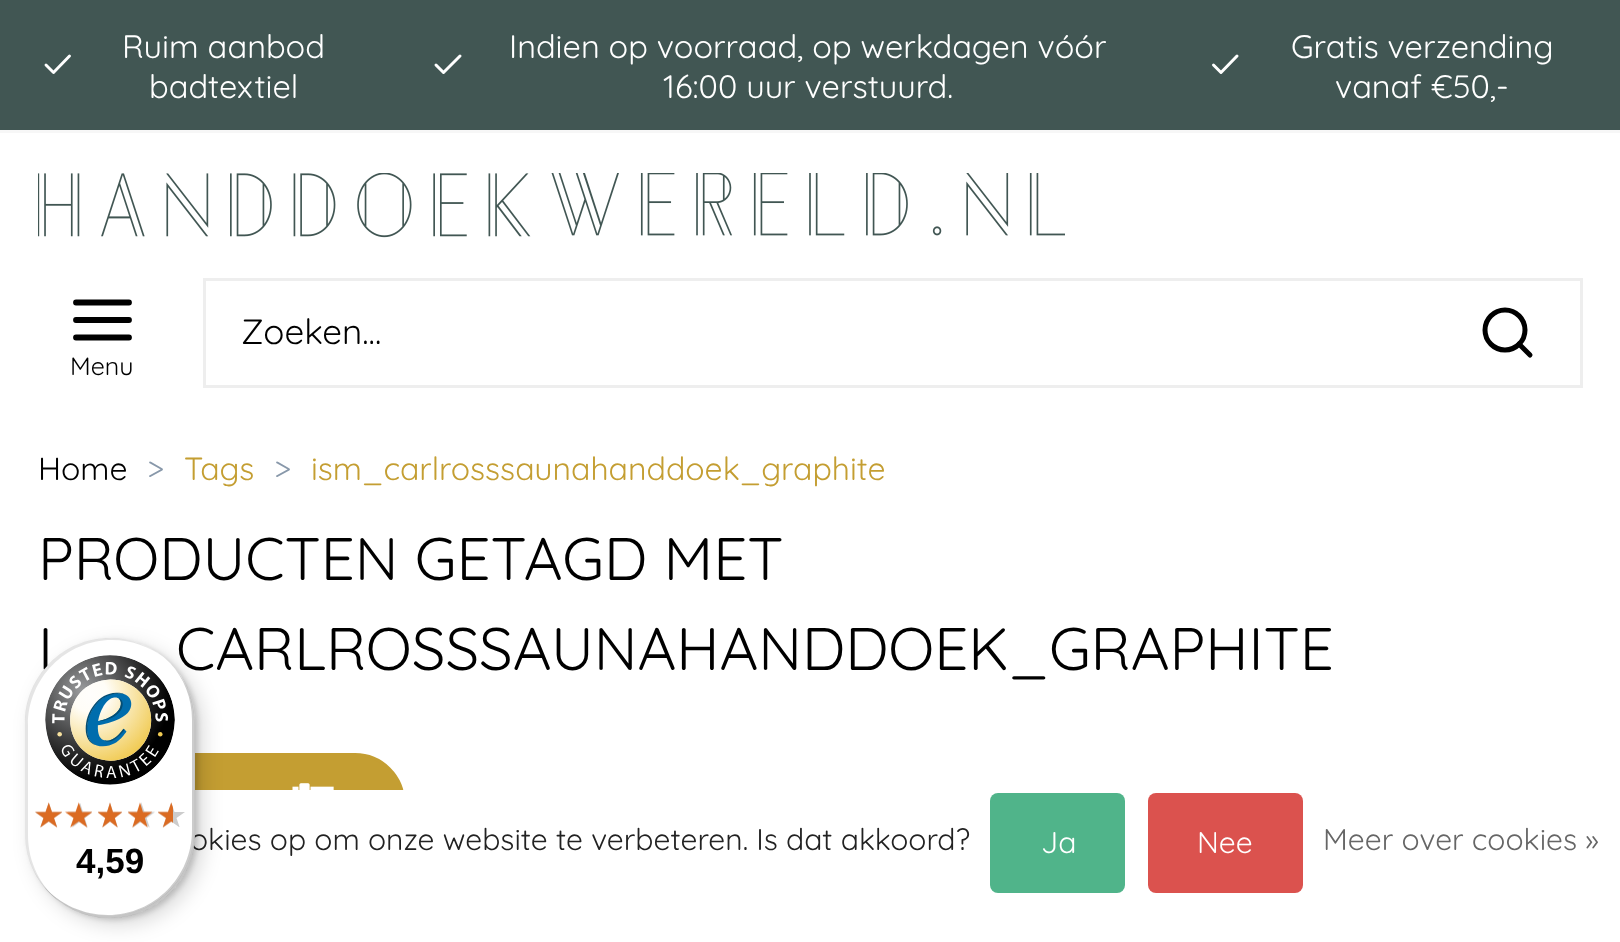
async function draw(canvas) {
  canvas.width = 1620
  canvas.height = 942
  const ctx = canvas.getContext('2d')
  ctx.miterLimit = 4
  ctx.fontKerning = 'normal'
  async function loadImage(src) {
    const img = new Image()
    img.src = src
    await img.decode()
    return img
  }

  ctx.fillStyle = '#fff'
  ctx.fillRect(0, 0, 1620, 942)
  ctx.fillStyle = '#415653'
  ctx.fillRect(0, 0, 1620, 130)
  ctx.fillStyle = '#f7f7f7'
  ctx.fillRect(0, 130, 1620, 3)
  ctx.beginPath()
  ctx.moveTo(69.5, 56)
  ctx.lineTo(53.5, 72.5)
  ctx.lineTo(46, 65)
  ctx.strokeStyle = '#fff'
  ctx.lineWidth = 2.9
  ctx.lineCap = 'round'
  ctx.lineJoin = 'round'
  ctx.stroke()
  ctx.font = '32.5px Quicksand'
  ctx.fillStyle = '#fff'
  ctx.fillText('Ruim aanbod', 122, 58)
  ctx.fillText('badtextiel', 149, 98)
  ctx.beginPath()
  ctx.moveTo(460, 56)
  ctx.lineTo(443.5, 72.5)
  ctx.lineTo(436, 65)
  ctx.lineWidth = 3
  ctx.stroke()
  ctx.fillText('Indien op voorraad, op werkdagen vóór', 509, 58)
  ctx.fillText('16:00 uur verstuurd.', 663, 98)
  ctx.beginPath()
  ctx.moveTo(1237, 56)
  ctx.lineTo(1221, 72.5)
  ctx.lineTo(1213.5, 65)
  ctx.stroke()
  ctx.fillText('Gratis verzending', 1291, 58)
  ctx.fillText('vanaf €50,-', 1335, 98)
  ctx.drawImage(await loadImage('image0.png'), 38, 173, 1027, 65)
  ctx.strokeStyle = '#eee'
  ctx.lineJoin = 'miter'
  ctx.strokeRect(204.5, 279.5, 1377, 107)
  ctx.font = '35px Quicksand'
  ctx.fillStyle = '#000'
  ctx.fillText('Zoeken...', 241, 344)
  ctx.beginPath()
  ctx.arc(1505, 330, 20, 0, 2 * Math.PI)
  ctx.strokeStyle = '#000'
  ctx.lineWidth = 5
  ctx.stroke()
  ctx.beginPath()
  ctx.moveTo(1530, 355)
  ctx.lineTo(1519, 344)
  ctx.lineJoin = 'round'
  ctx.stroke()
  ctx.beginPath()
  ctx.moveTo(76, 320)
  ctx.lineTo(129, 320)
  ctx.moveTo(76, 302.5)
  ctx.lineTo(129, 302.5)
  ctx.moveTo(76, 337.5)
  ctx.lineTo(129, 337.5)
  ctx.lineWidth = 5.8
  ctx.stroke()
  ctx.font = '25px Quicksand'
  ctx.fillText('Menu', 70, 375)
  ctx.font = '32px Quicksand'
  ctx.fillText('Home', 38, 480)
  ctx.fillStyle = '#8898aa'
  ctx.fillText('>', 147, 480)
  ctx.fillStyle = '#c49e32'
  ctx.fillText('Tags', 184, 480)
  ctx.fillStyle = '#8898aa'
  ctx.fillText('>', 274, 480)
  ctx.fillStyle = '#c49e32'
  ctx.fillText('ism_carlrosssaunahanddoek_graphite', 311, 480)
  ctx.font = '60px Quicksand'
  ctx.fillStyle = '#000'
  ctx.fillText('PRODUCTEN GETAGD MET', 38, 580)
  ctx.fillText('I', 38, 670)
  ctx.fillText('CARLROSSSAUNAHANDDOEK_GRAPHITE', 176, 670)
  ctx.fillStyle = '#c49e32'
  ctx.beginPath()
  ctx.roundRect(39.5, 754.5, 364, 97, 48.5)
  ctx.fill()
  ctx.strokeStyle = '#c49e32'
  ctx.lineWidth = 3
  ctx.lineJoin = 'miter'
  ctx.stroke()
  ctx.drawImage(await loadImage('image1.png'), 292, 783, 42, 7)
  ctx.fillStyle = '#fff'
  ctx.fillRect(38, 790, 367, 63)
  ctx.font = '30px Quicksand'
  ctx.fillStyle = '#222'
  ctx.fillText('okies op om onze website te verbeteren. Is dat akkoord?', 190, 850)
  ctx.fillStyle = '#50b48a'
  ctx.beginPath()
  ctx.roundRect(990, 793, 135, 100, 8)
  ctx.fill()
  ctx.fillStyle = '#fff'
  ctx.fillText('Ja', 1041, 853)
  ctx.fillStyle = '#db524e'
  ctx.beginPath()
  ctx.roundRect(1148, 793, 155, 100, 8)
  ctx.fill()
  ctx.fillStyle = '#fff'
  ctx.fillText('Nee', 1197, 853)
  ctx.fillStyle = '#666'
  ctx.fillText('Meer over cookies »', 1323, 850)
  ctx.fillStyle = '#00000026'
  ctx.filter = 'blur(10px)'
  ctx.beginPath()
  ctx.roundRect(33, 645, 170, 280, 85)
  ctx.fill()
  ctx.filter = 'none'
  ctx.filter = 'blur(2.5px)'
  ctx.beginPath()
  ctx.roundRect(28, 640, 170, 280, 85)
  ctx.fill()
  ctx.filter = 'none'
  ctx.fillStyle = '#fff'
  ctx.beginPath()
  ctx.roundRect(25, 638, 170, 280, 85)
  ctx.fill()
  ctx.fillStyle = '#0000001a'
  ctx.beginPath()
  ctx.moveTo(112, 640)
  ctx.bezierCurveTo(132, 640, 150, 647, 165, 658)
  ctx.bezierCurveTo(150, 646, 131, 638, 110, 638)
  ctx.bezierCurveTo(63, 638, 25, 676, 25, 723)
  ctx.lineTo(25, 833)
  ctx.bezierCurveTo(25, 862, 39, 887, 61, 903)
  ctx.bezierCurveTo(41, 887, 28, 863, 28, 835)
  ctx.lineTo(28, 725)
  ctx.bezierCurveTo(28, 678, 66, 640, 112, 640)
  ctx.closePath()
  ctx.fill()
  ctx.fillStyle = '#00000033'
  ctx.beginPath()
  ctx.moveTo(44, 887)
  ctx.bezierCurveTo(60, 906, 84, 918, 110, 918)
  ctx.bezierCurveTo(157, 918, 195, 880, 195, 833)
  ctx.lineTo(195, 723)
  ctx.bezierCurveTo(195, 700, 185, 678, 170, 663)
  ctx.bezierCurveTo(184, 678, 192, 698, 192, 720)
  ctx.lineTo(192, 830)
  ctx.bezierCurveTo(192, 877, 154, 915, 108, 915)
  ctx.bezierCurveTo(83, 915, 60, 904, 44, 887)
  ctx.closePath()
  ctx.fill()
  ctx.fillStyle = '#32323233'
  ctx.beginPath()
  ctx.moveTo(34, 871)
  ctx.bezierCurveTo(48, 899, 77, 918, 110, 918)
  ctx.bezierCurveTo(157, 918, 195, 880, 195, 833)
  ctx.lineTo(195, 723)
  ctx.bezierCurveTo(195, 706, 190, 690, 182, 677)
  ctx.bezierCurveTo(189, 690, 194, 705, 194, 721)
  ctx.lineTo(194, 831)
  ctx.bezierCurveTo(194, 878, 155, 916, 109, 916)
  ctx.bezierCurveTo(76, 916, 48, 898, 34, 871)
  ctx.closePath()
  ctx.fill()
  ctx.fillStyle = '#ffffff4d'
  ctx.beginPath()
  ctx.moveTo(34, 871)
  ctx.bezierCurveTo(48, 899, 77, 918, 110, 918)
  ctx.bezierCurveTo(157, 918, 195, 880, 195, 833)
  ctx.lineTo(195, 723)
  ctx.bezierCurveTo(195, 709, 192, 696, 186, 685)
  ctx.bezierCurveTo(191, 696, 194, 708, 194, 721)
  ctx.lineTo(194, 831)
  ctx.bezierCurveTo(194, 878, 156, 916, 109, 916)
  ctx.bezierCurveTo(76, 916, 48, 898, 34, 871)
  ctx.closePath()
  ctx.fill()
  ctx.drawImage(await loadImage('image2.png'), 45, 655, 130, 130)
  ctx.drawImage(await loadImage('image3.png'), 35, 803, 27, 24)
  ctx.drawImage(await loadImage('image4.png'), 68, 803, 24, 25)
  ctx.drawImage(await loadImage('image5.png'), 98, 803, 24, 24)
  ctx.drawImage(await loadImage('image6.png'), 128, 802, 27, 26)
  ctx.drawImage(await loadImage('image7.png'), 158, 803, 27, 24)
  ctx.drawImage(await loadImage('image8.png'), 35, 802, 27, 26)
  ctx.drawImage(await loadImage('image9.png'), 65, 802, 27, 26)
  ctx.drawImage(await loadImage('image10.png'), 98, 802, 24, 26)
  ctx.drawImage(await loadImage('image11.png'), 128, 802, 24, 26)
  ctx.drawImage(await loadImage('image12.png'), 158, 802, 15, 26)
  ctx.font = 'bold 35px Liberation Sans'
  ctx.fillStyle = '#000'
  ctx.fillText('4,59', 76, 873)
}

draw(document.querySelector('canvas'))
